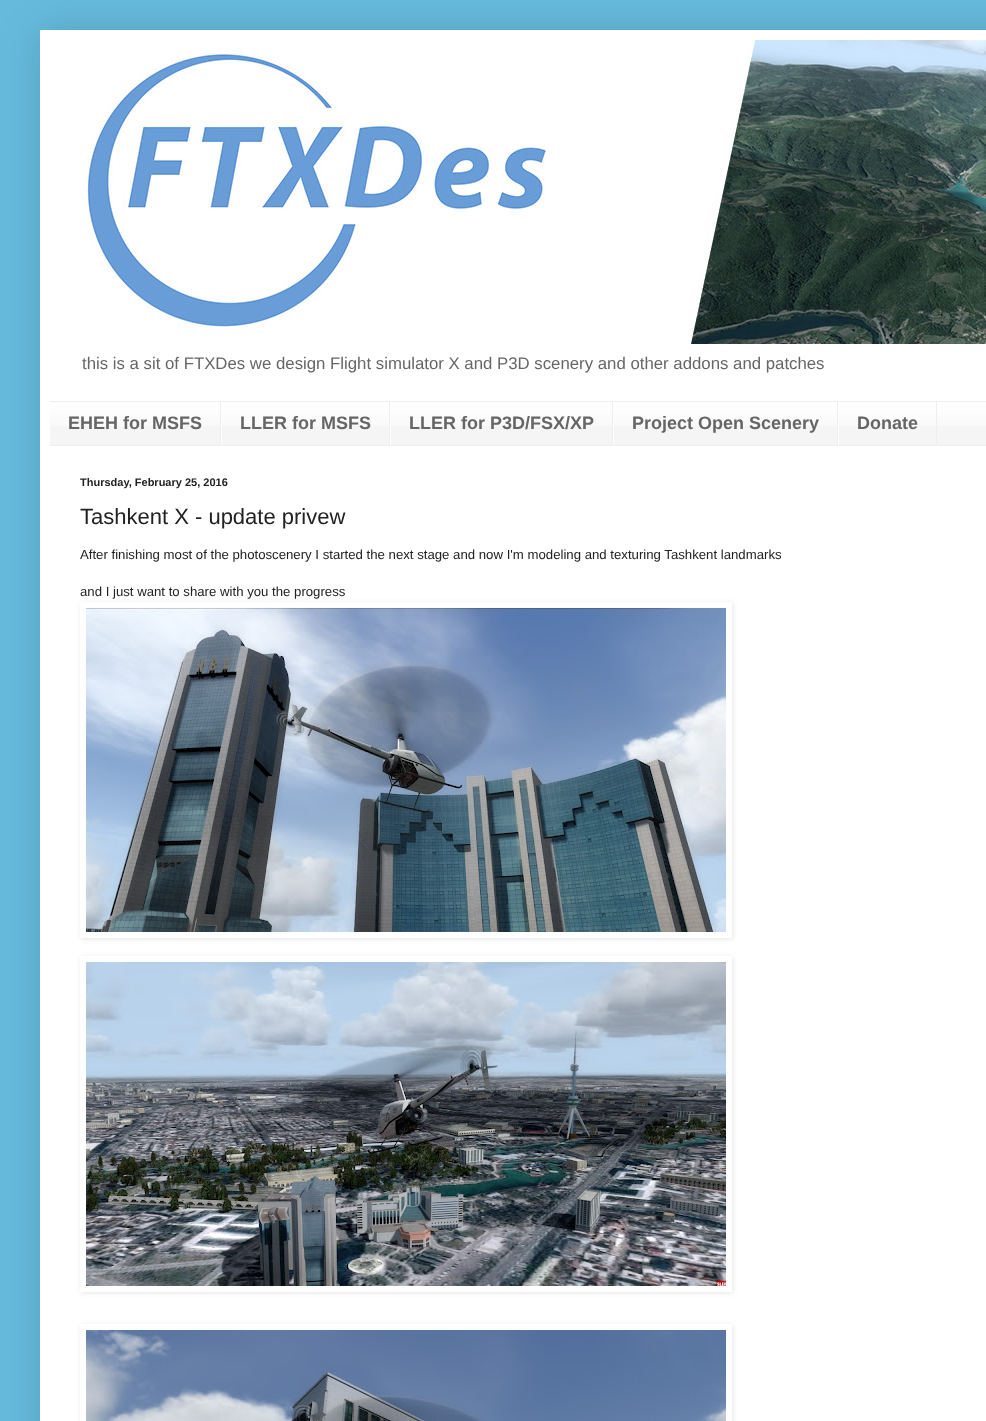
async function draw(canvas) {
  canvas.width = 986
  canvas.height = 1421
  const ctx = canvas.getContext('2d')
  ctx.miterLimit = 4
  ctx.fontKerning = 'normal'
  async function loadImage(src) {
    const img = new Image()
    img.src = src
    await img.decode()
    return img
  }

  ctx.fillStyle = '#6bd'
  ctx.fillRect(0, 0, 986, 1421)
  ctx.fillStyle = '#00000026'
  ctx.filter = 'blur(20px)'
  ctx.beginPath()
  ctx.rect(40, 30, 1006, 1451)
  ctx.fill()
  ctx.filter = 'none'
  ctx.fillStyle = '#fff'
  ctx.fillRect(40, 30, 946, 1391)
  ctx.drawImage(await loadImage('image0.png'), 83, 40, 903, 304)
  ctx.font = '16.8px Liberation Sans'
  ctx.fillStyle = '#666'
  ctx.fillText('this is a sit of FTXDes we design Flight simulator X and P3D scenery and other addons and patches', 82, 369)
  ctx.fillStyle = '#f5f5f5'
  ctx.fillRect(50, 403, 936, 42)
  ctx.drawImage(await loadImage('image1.png'), 50, 402, 936, 24)
  ctx.fillStyle = '#eee'
  ctx.fillRect(50, 401, 936, 1)
  ctx.fillRect(50, 445, 936, 1)
  ctx.fillRect(220, 402, 1, 43)
  ctx.font = 'bold 18px Liberation Sans'
  ctx.fillStyle = '#666'
  ctx.fillText('EHEH for MSFS', 68, 429)
  ctx.fillStyle = '#eee'
  ctx.fillRect(389, 402, 1, 43)
  ctx.fillStyle = '#fff'
  ctx.fillRect(221, 413, 1, 32)
  ctx.fillStyle = '#666'
  ctx.fillText('LLER for MSFS', 240, 429)
  ctx.fillStyle = '#eee'
  ctx.fillRect(612, 402, 1, 43)
  ctx.fillStyle = '#fff'
  ctx.fillRect(390, 413, 1, 32)
  ctx.fillStyle = '#666'
  ctx.fillText('LLER for P3D/FSX/XP', 409, 429)
  ctx.fillStyle = '#eee'
  ctx.fillRect(837, 402, 1, 43)
  ctx.fillStyle = '#fff'
  ctx.fillRect(613, 413, 1, 32)
  ctx.fillStyle = '#666'
  ctx.fillText('Project Open Scenery', 632, 429)
  ctx.fillStyle = '#eee'
  ctx.fillRect(936, 402, 1, 43)
  ctx.fillStyle = '#fff'
  ctx.fillRect(838, 413, 1, 32)
  ctx.fillStyle = '#666'
  ctx.fillText('Donate', 857, 429)
  ctx.font = 'bold 11px Liberation Sans'
  ctx.fillStyle = '#222'
  ctx.fillText('Thursday, February 25, 2016', 80, 486)
  ctx.font = '22px Liberation Sans'
  ctx.fillText('Tashkent X - update privew', 80, 524)
  ctx.font = '13.2px Liberation Sans'
  ctx.fillText('After finishing most of the photoscenery I started the next stage and now I\'m modeling and texturing Tashkent landmarks', 80, 559)
  ctx.fillText('and I just want to share with you the progress', 80, 596)
  ctx.save()
  ctx.beginPath()
  ctx.moveTo(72, 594)
  ctx.lineTo(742, 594)
  ctx.lineTo(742, 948)
  ctx.lineTo(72, 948)
  ctx.closePath()
  ctx.moveTo(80, 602)
  ctx.lineTo(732, 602)
  ctx.lineTo(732, 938)
  ctx.lineTo(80, 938)
  ctx.closePath()
  ctx.clip('evenodd')
  ctx.fillStyle = '#0000001a'
  ctx.filter = 'blur(2.5px)'
  ctx.beginPath()
  ctx.rect(81, 603, 652, 336)
  ctx.fill()
  ctx.filter = 'none'
  ctx.restore()
  ctx.drawImage(await loadImage('image2.png'), 86, 608, 640, 324)
  ctx.save()
  ctx.beginPath()
  ctx.moveTo(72, 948)
  ctx.lineTo(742, 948)
  ctx.lineTo(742, 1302)
  ctx.lineTo(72, 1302)
  ctx.closePath()
  ctx.moveTo(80, 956)
  ctx.lineTo(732, 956)
  ctx.lineTo(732, 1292)
  ctx.lineTo(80, 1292)
  ctx.closePath()
  ctx.clip('evenodd')
  ctx.fillStyle = '#0000001a'
  ctx.filter = 'blur(2.5px)'
  ctx.beginPath()
  ctx.rect(81, 957, 652, 336)
  ctx.fill()
  ctx.filter = 'none'
  ctx.restore()
  ctx.drawImage(await loadImage('image3.png'), 86, 962, 640, 324)
  ctx.save()
  ctx.beginPath()
  ctx.moveTo(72, 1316)
  ctx.lineTo(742, 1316)
  ctx.lineTo(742, 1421)
  ctx.lineTo(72, 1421)
  ctx.closePath()
  ctx.moveTo(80, 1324)
  ctx.lineTo(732, 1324)
  ctx.lineTo(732, 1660)
  ctx.lineTo(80, 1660)
  ctx.closePath()
  ctx.clip('evenodd')
  ctx.fillStyle = '#0000001a'
  ctx.filter = 'blur(2.5px)'
  ctx.beginPath()
  ctx.rect(81, 1325, 652, 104)
  ctx.fill()
  ctx.filter = 'none'
  ctx.restore()
  ctx.drawImage(await loadImage('image4.png'), 86, 1330, 640, 91)
}

draw(document.querySelector('canvas'))
